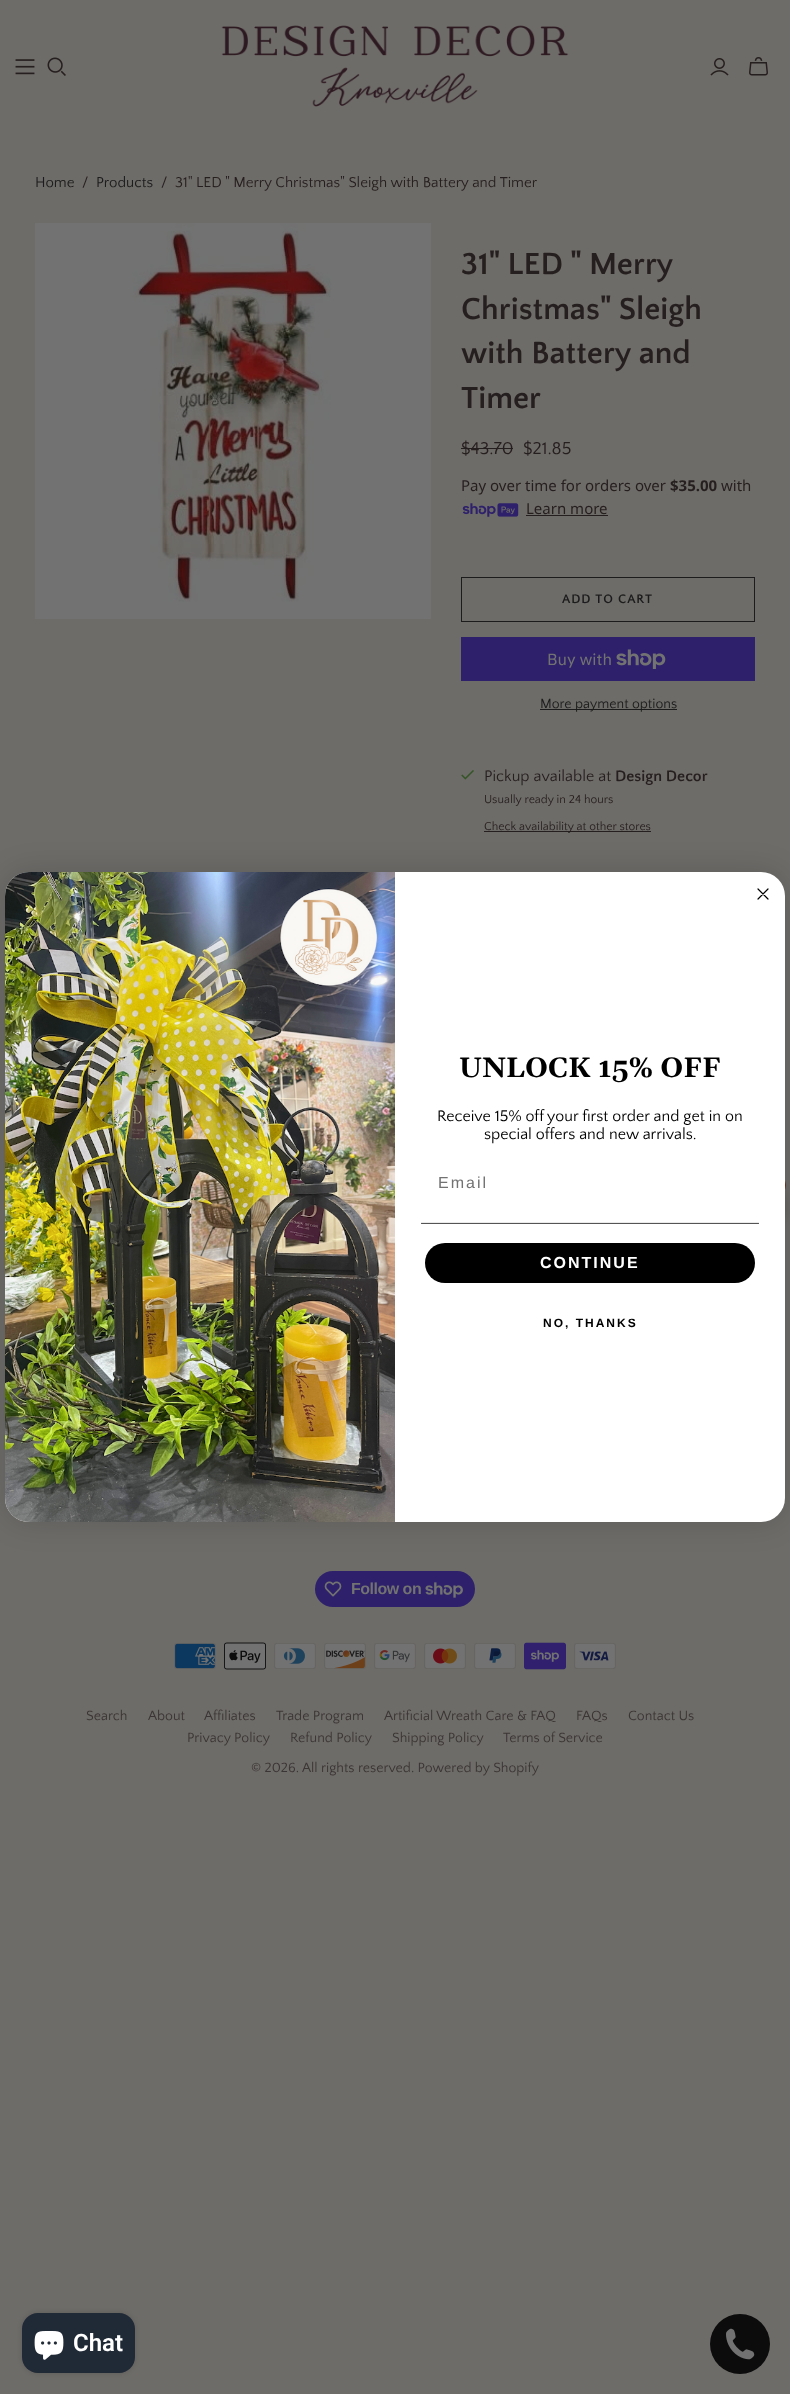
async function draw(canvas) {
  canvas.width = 790
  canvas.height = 2394
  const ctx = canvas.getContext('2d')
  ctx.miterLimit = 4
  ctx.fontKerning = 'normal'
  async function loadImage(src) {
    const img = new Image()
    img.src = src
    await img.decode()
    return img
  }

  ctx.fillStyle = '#6e6c69'
  ctx.fillRect(0, 0, 790, 2394)
  ctx.drawImage(await loadImage('image0.png'), 221, 25, 348, 82)
  ctx.drawImage(await loadImage('image1.png'), 15, 59, 20, 16)
  ctx.drawImage(await loadImage('image2.png'), 47, 57, 19, 19)
  ctx.drawImage(await loadImage('image3.png'), 710, 58, 19, 18)
  ctx.drawImage(await loadImage('image4.png'), 749, 57, 19, 19)
  ctx.font = '15px Quattrocento Sans'
  ctx.fillStyle = '#1c1c1c'
  ctx.fillText('Home', 35, 187)
  ctx.fillStyle = '#261f1f'
  ctx.fillText('/', 82, 187)
  ctx.fillStyle = '#1c1c1c'
  ctx.fillText('Products', 96, 187)
  ctx.fillStyle = '#261f1f'
  ctx.fillText('/', 161, 187)
  ctx.fillText('31" LED " Merry Christmas" Sleigh with Battery and Timer', 175, 187)
  ctx.drawImage(await loadImage('image5.png'), 35, 223, 396, 396)
  ctx.font = 'bold 32px Quattrocento Sans'
  ctx.fillText('31" LED " Merry', 461, 274)
  ctx.fillText('Christmas" Sleigh', 461, 319)
  ctx.fillText('with Battery and', 461, 363)
  ctx.fillText('Timer', 461, 408)
  ctx.font = '18px Quattrocento Sans'
  ctx.fillText('$43.70', 461, 454)
  ctx.fillRect(461, 448, 52, 1)
  ctx.fillText('$21.85', 523, 454)
  ctx.font = '15px Noto Sans'
  ctx.fillText('Pay over time for orders over', 461, 491)
  ctx.font = 'bold 15px Noto Sans'
  ctx.fillText('$35.00', 670, 491)
  ctx.font = '15px Noto Sans'
  ctx.fillText('with', 721, 491)
  ctx.drawImage(await loadImage('image6.png'), 462, 503, 57, 14)
  ctx.fillText('Learn more', 526, 514)
  ctx.fillRect(526, 515, 82, 1)
  ctx.strokeStyle = '#1c1c1c'
  ctx.strokeRect(461.5, 577.5, 293, 44)
  ctx.letterSpacing = '1px'
  ctx.font = 'bold 13px Quattrocento Sans'
  ctx.fillStyle = '#1c1c1c'
  ctx.fillText('ADD TO CART', 562, 603)
  ctx.fillStyle = '#2e206a'
  ctx.fillRect(461, 637, 294, 44)
  ctx.letterSpacing = '0px'
  ctx.font = '16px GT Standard'
  ctx.fillStyle = '#727272'
  ctx.fillText('Buy with', 547, 665)
  ctx.drawImage(await loadImage('image7.png'), 616, 649, 50, 20)
  ctx.fillStyle = '#1c1c1c'
  ctx.fillRect(540, 709, 137, 1)
  ctx.font = '14px Quattrocento Sans'
  ctx.fillText('More payment options', 540, 708)
  ctx.drawImage(await loadImage('image8.png'), 461, 770, 13, 10)
  ctx.font = '16px Quattrocento Sans'
  ctx.fillStyle = '#261f1f'
  ctx.fillText('Pickup available at', 484, 781)
  ctx.font = 'bold 16px Quattrocento Sans'
  ctx.fillText('Design Decor', 615, 781)
  ctx.font = '12px Quattrocento Sans'
  ctx.fillText('Usually ready in 24 hours', 484, 803)
  ctx.fillRect(484, 831, 167, 1)
  ctx.fillText('Check availability at other stores', 484, 830)
  ctx.fillStyle = '#0c0c0c1f'
  ctx.filter = 'blur(5px)'
  ctx.beginPath()
  ctx.roundRect(734, 1180, 52, 52, 26)
  ctx.fill()
  ctx.filter = 'none'
  ctx.fillStyle = '#683220'
  ctx.beginPath()
  ctx.arc(776, 1185, 10, 0, 2 * Math.PI)
  ctx.fill()
  ctx.fillStyle = '#00000026'
  ctx.filter = 'blur(15px)'
  ctx.beginPath()
  ctx.roundRect(5, 872, 780, 650, 24)
  ctx.fill()
  ctx.filter = 'none'
  ctx.fillStyle = '#fff'
  ctx.beginPath()
  ctx.roundRect(5, 872, 780, 650, 24)
  ctx.fill()
  ctx.beginPath()
  ctx.moveTo(758, 889)
  ctx.lineTo(768, 899)
  ctx.moveTo(758, 899)
  ctx.lineTo(768, 889)
  ctx.closePath()
  ctx.strokeStyle = '#000'
  ctx.lineWidth = 1.2
  ctx.lineCap = 'round'
  ctx.lineJoin = 'round'
  ctx.stroke()
  ctx.drawImage(await loadImage('image9.png'), 5, 872, 390, 650)
  ctx.font = 'bold 28px Gelasio'
  ctx.fillStyle = '#000'
  ctx.fillText('UNLOCK 15% OFF', 459, 1077)
  ctx.font = '16px Quattrocento Sans'
  ctx.fillText('Receive 15% off your first order and get in on', 437, 1121)
  ctx.fillText('special offers and new arrivals.', 484, 1139)
  ctx.letterSpacing = '2px'
  ctx.font = '16px Liberation Sans'
  ctx.fillStyle = '#727272'
  ctx.fillText('Email', 438, 1188)
  ctx.drawImage(await loadImage('image10.png'), 421, 1222, 338, 2)
  ctx.fillStyle = '#000'
  ctx.beginPath()
  ctx.roundRect(425, 1243, 330, 40, 20)
  ctx.fill()
  ctx.font = 'bold 16px Liberation Sans'
  ctx.fillStyle = '#fff'
  ctx.fillText('CONTINUE', 540, 1268)
  ctx.font = 'bold 12px Liberation Sans'
  ctx.fillStyle = '#000'
  ctx.fillText('NO, THANKS', 543, 1327)
  ctx.fillStyle = '#2e206a'
  ctx.beginPath()
  ctx.roundRect(315, 1571, 160, 36, 18)
  ctx.fill()
  ctx.drawImage(await loadImage('image11.png'), 324, 1581, 18, 16)
  ctx.letterSpacing = '-0.5px'
  ctx.font = 'bold 16px Liberation Sans'
  ctx.fillStyle = '#727272'
  ctx.fillText('Follow on', 351, 1594)
  ctx.drawImage(await loadImage('image12.png'), 425, 1582, 38, 16)
  ctx.drawImage(await loadImage('image13.png'), 174, 1643, 42, 26)
  ctx.drawImage(await loadImage('image14.png'), 224, 1642, 42, 28)
  ctx.drawImage(await loadImage('image15.png'), 274, 1643, 42, 26)
  ctx.drawImage(await loadImage('image16.png'), 324, 1643, 42, 26)
  ctx.drawImage(await loadImage('image17.png'), 374, 1643, 42, 26)
  ctx.drawImage(await loadImage('image18.png'), 424, 1643, 42, 26)
  ctx.drawImage(await loadImage('image19.png'), 474, 1643, 42, 26)
  ctx.drawImage(await loadImage('image20.png'), 524, 1642, 42, 28)
  ctx.drawImage(await loadImage('image21.png'), 574, 1643, 42, 26)
  ctx.letterSpacing = '0px'
  ctx.font = '14px Quattrocento Sans'
  ctx.fillStyle = '#3b3635'
  ctx.fillText('Search', 86, 1720)
  ctx.fillText('About', 148, 1720)
  ctx.fillText('Affiliates', 204, 1720)
  ctx.fillText('Trade Program', 276, 1720)
  ctx.fillText('Artificial Wreath Care & FAQ', 384, 1720)
  ctx.fillText('FAQs', 576, 1720)
  ctx.fillText('Contact Us', 628, 1720)
  ctx.fillText('Privacy Policy', 187, 1742)
  ctx.fillText('Refund Policy', 290, 1742)
  ctx.fillText('Shipping Policy', 392, 1742)
  ctx.fillText('Terms of Service', 503, 1742)
  ctx.fillText('© 2026. All rights reserved. Powered by Shopify', 251, 1772)
  ctx.fillStyle = '#00000026'
  ctx.filter = 'blur(2.5px)'
  ctx.beginPath()
  ctx.roundRect(22, 2313, 113, 60, 16)
  ctx.fill()
  ctx.filter = 'none'
  ctx.fillStyle = '#202a36'
  ctx.beginPath()
  ctx.roundRect(22, 2313, 113, 60, 16)
  ctx.fill()
  ctx.drawImage(await loadImage('image22.png'), 34, 2331, 30, 29)
  ctx.font = '600 24px Roboto'
  ctx.fillStyle = '#fff'
  ctx.fillText('Chat', 73, 2351)
  ctx.fillStyle = '#0c0c0c'
  ctx.beginPath()
  ctx.arc(740, 2344, 30, 0, 2 * Math.PI)
  ctx.fill()
  ctx.drawImage(await loadImage('image23.png'), 726, 2328, 29, 32)
}

draw(document.querySelector('canvas'))
